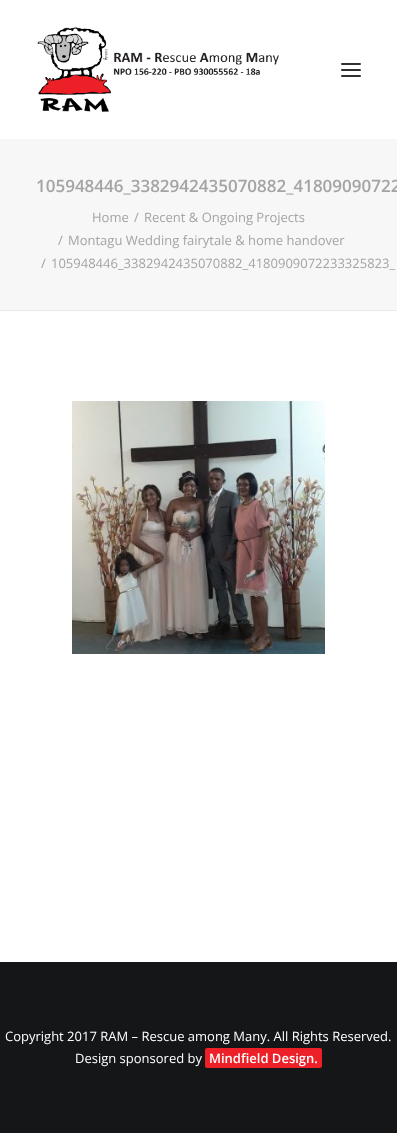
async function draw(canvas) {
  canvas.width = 397
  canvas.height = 1133
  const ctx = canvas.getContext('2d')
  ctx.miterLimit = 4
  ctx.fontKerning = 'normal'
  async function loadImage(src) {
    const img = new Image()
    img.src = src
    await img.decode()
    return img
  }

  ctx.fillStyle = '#f7f7f7'
  ctx.fillRect(0, 0, 397, 1133)
  ctx.fillStyle = '#fff'
  ctx.fillRect(0, 0, 397, 139)
  ctx.drawImage(await loadImage('image0.png'), 37, 27, 242, 85)
  ctx.fillStyle = '#303133'
  ctx.beginPath()
  ctx.roundRect(341, 69, 20, 2, 1)
  ctx.fill()
  ctx.beginPath()
  ctx.roundRect(341, 63, 20, 2, 1)
  ctx.fill()
  ctx.beginPath()
  ctx.roundRect(341, 75, 20, 2, 1)
  ctx.fill()
  ctx.fillStyle = '#eaeaea'
  ctx.fillRect(0, 310, 397, 1)
  ctx.font = '600 17px Open Sans'
  ctx.fillStyle = '#a4a4a4'
  ctx.fillText('105948446_3382942435070882_41809090722', 36, 192)
  ctx.font = '13px Open Sans'
  ctx.fillText('Home', 92, 222)
  ctx.fillText('/', 134, 222)
  ctx.fillText('Recent & Ongoing Projects', 144, 222)
  ctx.fillText('/', 58, 245)
  ctx.fillText('Montagu Wedding fairytale & home handover', 68, 245)
  ctx.fillText('/', 41, 268)
  ctx.fillText('105948446_3382942435070882_4180909072233325823_', 51, 268)
  ctx.fillStyle = '#fff'
  ctx.fillRect(0, 311, 397, 651)
  ctx.drawImage(await loadImage('image1.png'), 72, 401, 253, 253)
  ctx.fillStyle = '#141618'
  ctx.fillRect(0, 962, 397, 171)
  ctx.fillStyle = '#fff'
  ctx.fillText('Copyright 2017 RAM – Rescue among Many. All Rights Reserved.', 5, 1041)
  ctx.fillText('Design sponsored by', 75, 1063)
  ctx.fillStyle = '#ed1f27'
  ctx.beginPath()
  ctx.roundRect(205, 1048, 110, 20, [2, 0, 0, 2])
  ctx.fill()
  ctx.beginPath()
  ctx.roundRect(315, 1048, 7, 20, [0, 2, 2, 0])
  ctx.fill()
  ctx.font = '600 13px Open Sans'
  ctx.fillStyle = '#fff'
  ctx.fillText('Mindfield Design.', 209, 1063)
}

draw(document.querySelector('canvas'))
